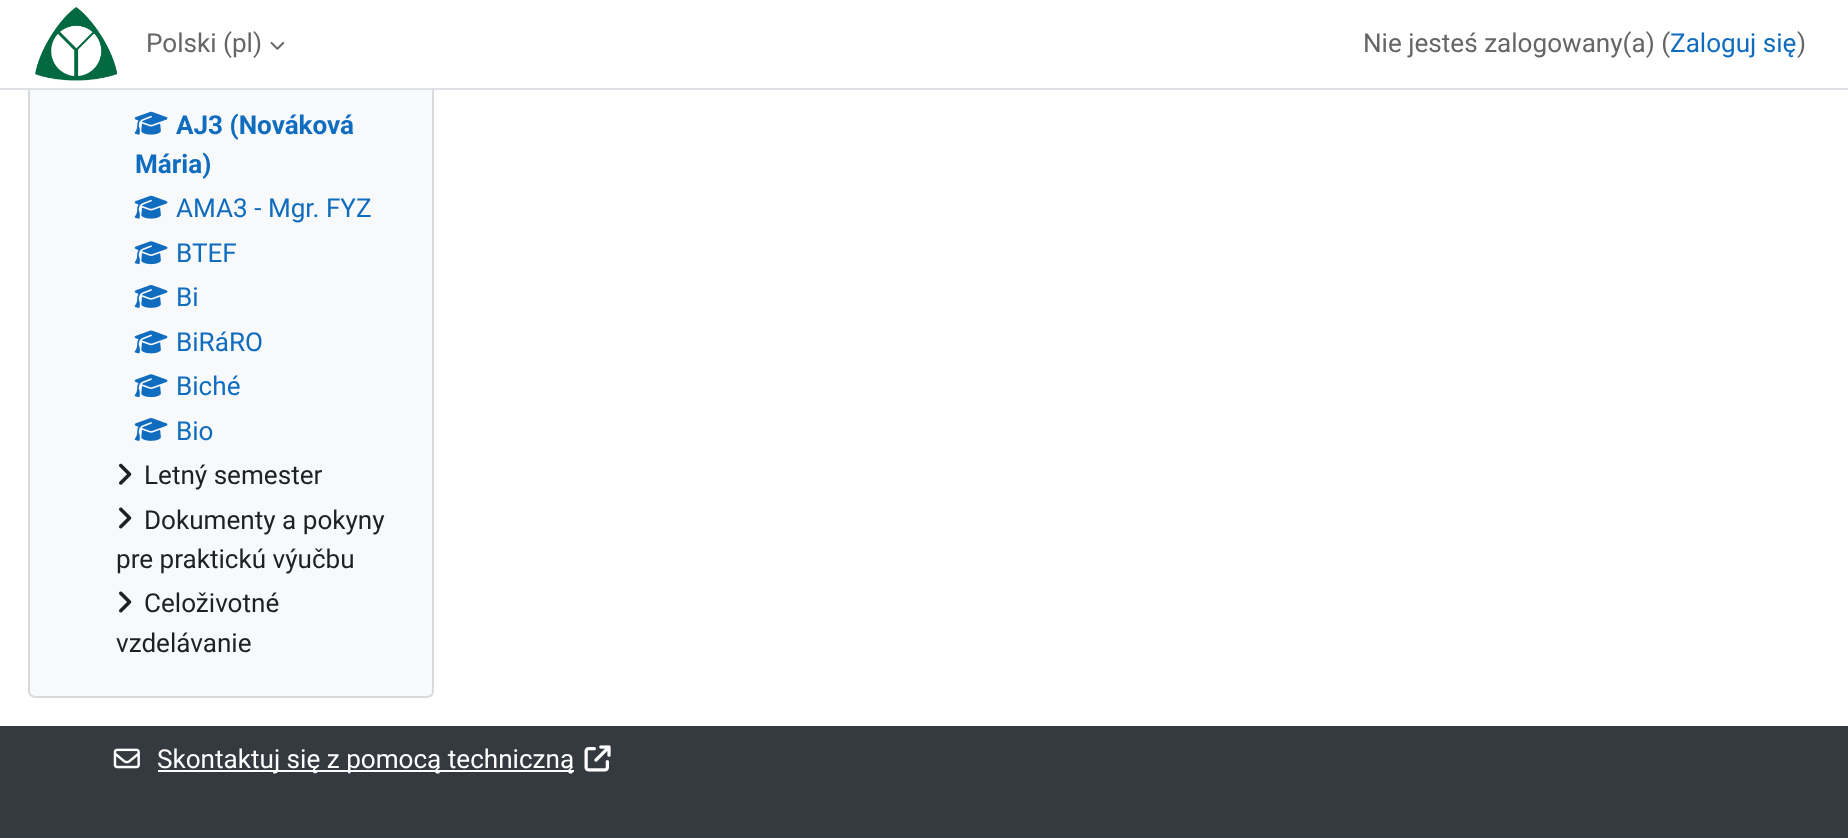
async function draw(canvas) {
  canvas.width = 1848
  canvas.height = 838
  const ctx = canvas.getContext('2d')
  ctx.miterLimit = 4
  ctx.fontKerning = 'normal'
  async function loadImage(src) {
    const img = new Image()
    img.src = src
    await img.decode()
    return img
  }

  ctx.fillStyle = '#fff'
  ctx.fillRect(0, 0, 1848, 838)
  ctx.fillStyle = '#f8f9fa'
  ctx.beginPath()
  ctx.roundRect(28, -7, 406, 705, 7)
  ctx.fill()
  ctx.beginPath()
  ctx.roundRect(29, -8, 404, 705, 6)
  ctx.strokeStyle = '#0000001f'
  ctx.lineWidth = 2
  ctx.stroke()
  ctx.fillStyle = '#fff'
  ctx.fillRect(28, 0, 406, 88)
  ctx.fillStyle = '#dee2e6'
  ctx.fillRect(0, 88, 1848, 2)
  ctx.drawImage(await loadImage('image0.png'), 35, 7, 83, 74)
  ctx.font = '26.1px Roboto'
  ctx.fillStyle = '#666'
  ctx.fillText('Polski (pl)', 146, 52)
  ctx.drawImage(await loadImage('image1.png'), 270, 42, 15, 8)
  ctx.fillText('Nie jesteś zalogowany(a) (', 1363, 52)
  ctx.fillStyle = '#0f6cbf'
  ctx.fillText('Zaloguj się', 1670, 52)
  ctx.fillStyle = '#666'
  ctx.fillText(')', 1797, 52)
  ctx.drawImage(await loadImage('image2.png'), 134, 111, 34, 24)
  ctx.font = 'bold 26.1px Roboto'
  ctx.fillStyle = '#0f6cbf'
  ctx.fillText('AJ3 (Nováková', 176, 134)
  ctx.fillText('Mária)', 135, 173)
  ctx.drawImage(await loadImage('image2.png'), 134, 195, 34, 24)
  ctx.font = '26.1px Roboto'
  ctx.fillText('AMA3 - Mgr. FYZ', 176, 217)
  ctx.drawImage(await loadImage('image3.png'), 134, 241, 34, 24)
  ctx.fillText('BTEF', 176, 262)
  ctx.drawImage(await loadImage('image4.png'), 134, 285, 34, 23)
  ctx.fillText('Bi', 176, 306)
  ctx.drawImage(await loadImage('image5.png'), 134, 330, 34, 24)
  ctx.fillText('BiRáRO', 176, 351)
  ctx.drawImage(await loadImage('image3.png'), 134, 374, 34, 24)
  ctx.fillText('Biché', 176, 395)
  ctx.drawImage(await loadImage('image4.png'), 134, 418, 34, 23)
  ctx.fillText('Bio', 176, 440)
  ctx.drawImage(await loadImage('image6.png'), 119, 463, 13, 22)
  ctx.fillStyle = '#1d2125'
  ctx.fillText('Letný semester', 144, 484)
  ctx.drawImage(await loadImage('image7.png'), 119, 507, 13, 22)
  ctx.fillText('Dokumenty a pokyny', 144, 529)
  ctx.fillText('pre praktickú výučbu', 116, 568)
  ctx.drawImage(await loadImage('image7.png'), 119, 591, 13, 22)
  ctx.fillText('Celoživotné', 144, 612)
  ctx.fillText('vzdelávanie', 116, 652)
  ctx.fillStyle = '#343a40'
  ctx.fillRect(0, 726, 1848, 112)
  ctx.drawImage(await loadImage('image8.png'), 113, 748, 27, 21)
  ctx.fillStyle = '#fff'
  ctx.fillRect(158, 770, 416, 2)
  ctx.fillText('Skontaktuj się z pomocą techniczną', 157, 768)
  ctx.drawImage(await loadImage('image9.png'), 584, 745, 27, 27)
}

draw(document.querySelector('canvas'))
